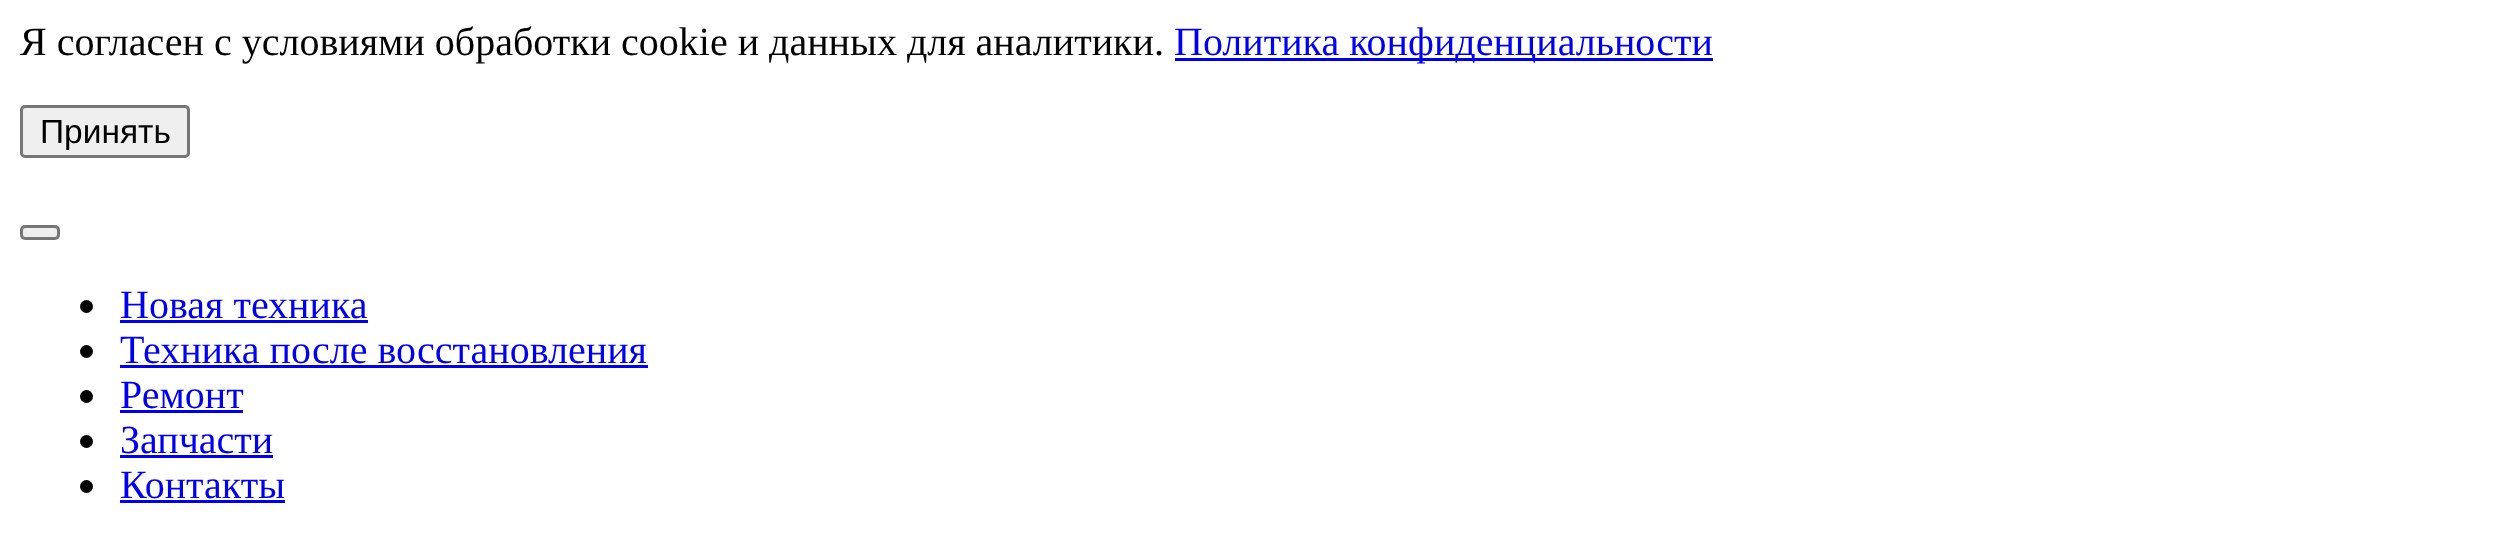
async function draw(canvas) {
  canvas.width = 2502
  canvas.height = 542
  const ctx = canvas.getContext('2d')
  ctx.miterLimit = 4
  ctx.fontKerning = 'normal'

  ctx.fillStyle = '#fff'
  ctx.fillRect(0, 0, 2502, 542)
  ctx.font = '40px Liberation Serif'
  ctx.fillStyle = '#000'
  ctx.fillText('Я согласен с условиями обработки cookie и данных для аналитики.', 20, 55)
  ctx.fillStyle = '#00e'
  ctx.fillRect(1175, 58, 538, 3)
  ctx.fillText('Политика конфиденциальности', 1174, 55)
  ctx.fillStyle = '#efefef'
  ctx.beginPath()
  ctx.roundRect(21.5, 106.5, 167, 50, 3.5)
  ctx.fill()
  ctx.strokeStyle = '#767676'
  ctx.lineWidth = 3
  ctx.stroke()
  ctx.font = '33.5px Liberation Sans'
  ctx.fillStyle = '#000'
  ctx.fillText('Принять', 40, 143)
  ctx.fillStyle = '#efefef'
  ctx.beginPath()
  ctx.roundRect(21.5, 226.5, 37, 12, 3.5)
  ctx.fill()
  ctx.stroke()
  ctx.fillStyle = '#000'
  ctx.beginPath()
  ctx.arc(86.5, 306.5, 6.5, 0, 2 * Math.PI)
  ctx.fill()
  ctx.font = '40px Liberation Serif'
  ctx.fillStyle = '#00e'
  ctx.fillText('Новая техника', 120, 318)
  ctx.fillRect(120, 320, 248, 3)
  ctx.fillStyle = '#000'
  ctx.beginPath()
  ctx.arc(86.5, 351.5, 6.5, 0, 2 * Math.PI)
  ctx.fill()
  ctx.fillStyle = '#00e'
  ctx.fillText('Техника после восстановления', 120, 363)
  ctx.fillRect(120, 365, 528, 3)
  ctx.fillStyle = '#000'
  ctx.beginPath()
  ctx.arc(86.5, 396.5, 6.5, 0, 2 * Math.PI)
  ctx.fill()
  ctx.fillStyle = '#00e'
  ctx.fillText('Ремонт', 120, 408)
  ctx.fillRect(120, 410, 123, 3)
  ctx.fillStyle = '#000'
  ctx.beginPath()
  ctx.arc(86.5, 441.5, 6.5, 0, 2 * Math.PI)
  ctx.fill()
  ctx.fillStyle = '#00e'
  ctx.fillText('Запчасти', 120, 453)
  ctx.fillRect(120, 455, 153, 3)
  ctx.fillStyle = '#000'
  ctx.beginPath()
  ctx.arc(86.5, 486.5, 6.5, 0, 2 * Math.PI)
  ctx.fill()
  ctx.fillStyle = '#00e'
  ctx.fillText('Контакты', 120, 498)
  ctx.fillRect(120, 500, 165, 3)
}

draw(document.querySelector('canvas'))
